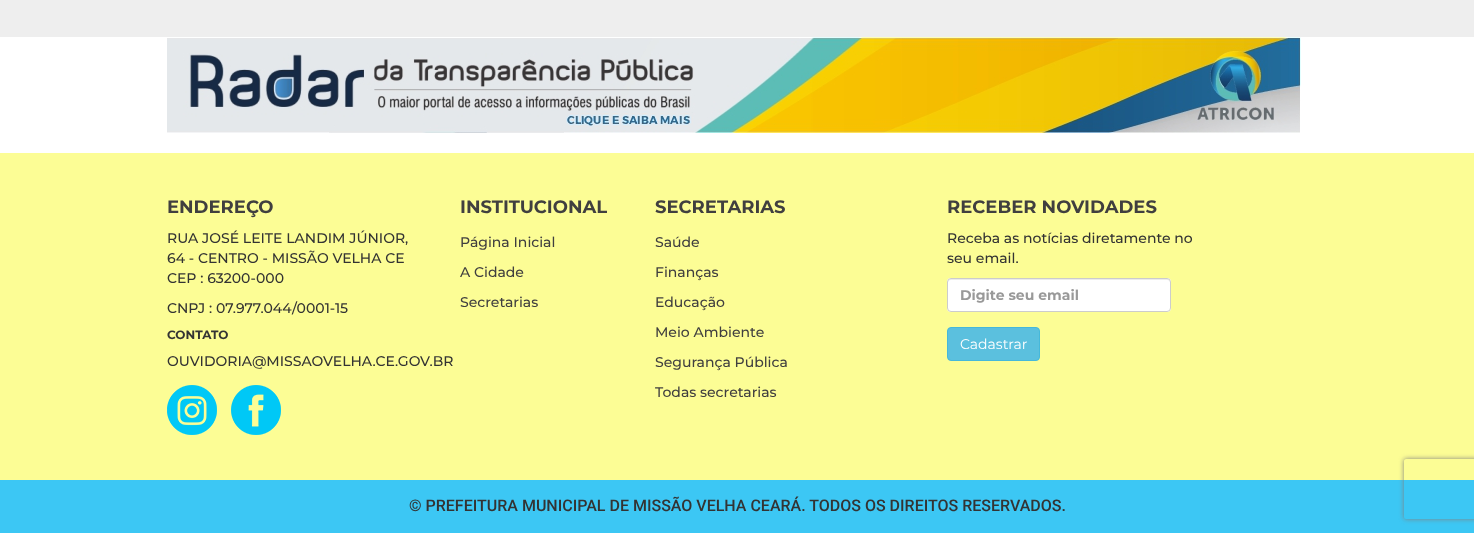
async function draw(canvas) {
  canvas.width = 1474
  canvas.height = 533
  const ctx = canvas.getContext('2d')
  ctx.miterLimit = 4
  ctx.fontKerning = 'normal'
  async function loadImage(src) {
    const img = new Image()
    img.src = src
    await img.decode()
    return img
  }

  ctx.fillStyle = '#fff'
  ctx.fillRect(0, 0, 1474, 533)
  ctx.fillStyle = '#eee'
  ctx.fillRect(0, 0, 1474, 37)
  ctx.drawImage(await loadImage('image0.png'), 167, 37, 1134, 96)
  ctx.fillStyle = '#fcfd95'
  ctx.fillRect(0, 153, 1474, 327)
  ctx.font = 'bold 18px Montserrat'
  ctx.fillStyle = '#403f3f'
  ctx.fillText('ENDEREÇO', 167, 213)
  ctx.font = '500 14px Montserrat'
  ctx.fillStyle = '#333'
  ctx.fillText('RUA JOSÉ LEITE LANDIM JÚNIOR,', 167, 243)
  ctx.fillText('64 - CENTRO - MISSÃO VELHA CE', 167, 263)
  ctx.fillText('CEP : 63200-000', 167, 283)
  ctx.fillText('CNPJ : 07.977.044/0001-15', 167, 313)
  ctx.font = 'bold 12px Montserrat'
  ctx.fillText('CONTATO', 167, 339)
  ctx.font = '500 14px Montserrat'
  ctx.fillText('OUVIDORIA@MISSAOVELHA.CE.GOV.BR', 167, 366)
  ctx.drawImage(await loadImage('image1.png'), 167, 385, 50, 50)
  ctx.drawImage(await loadImage('image2.png'), 231, 385, 50, 50)
  ctx.font = 'bold 18px Montserrat'
  ctx.fillStyle = '#403f3f'
  ctx.fillText('INSTITUCIONAL', 460, 213)
  ctx.font = '500 14px Montserrat'
  ctx.fillText('Página Inicial', 460, 247)
  ctx.fillText('A Cidade', 460, 277)
  ctx.fillText('Secretarias', 460, 307)
  ctx.font = 'bold 18px Montserrat'
  ctx.fillText('SECRETARIAS', 655, 213)
  ctx.font = '500 14px Montserrat'
  ctx.fillText('Saúde', 655, 247)
  ctx.fillText('Finanças', 655, 277)
  ctx.fillText('Educação', 655, 307)
  ctx.fillText('Meio Ambiente', 655, 337)
  ctx.fillText('Segurança Pública', 655, 367)
  ctx.fillText('Todas secretarias', 655, 397)
  ctx.font = 'bold 18px Montserrat'
  ctx.fillText('RECEBER NOVIDADES', 947, 213)
  ctx.font = '500 14px Montserrat'
  ctx.fillStyle = '#333'
  ctx.fillText('Receba as notícias diretamente no', 947, 243)
  ctx.fillText('seu email.', 947, 263)
  ctx.fillStyle = '#fff'
  ctx.beginPath()
  ctx.roundRect(947, 278, 224, 34, 4)
  ctx.fill()
  ctx.fillStyle = '#ececec'
  ctx.beginPath()
  ctx.moveTo(951, 280)
  ctx.lineTo(1167, 280)
  ctx.bezierCurveTo(1169, 280, 1170, 281, 1170, 283)
  ctx.lineTo(1170, 282)
  ctx.bezierCurveTo(1170, 280, 1169, 279, 1167, 279)
  ctx.lineTo(951, 279)
  ctx.bezierCurveTo(949, 279, 948, 280, 948, 282)
  ctx.lineTo(948, 283)
  ctx.bezierCurveTo(948, 281, 949, 280, 951, 280)
  ctx.closePath()
  ctx.fill()
  ctx.beginPath()
  ctx.roundRect(947.5, 278.5, 223, 33, 3.5)
  ctx.strokeStyle = '#ccc'
  ctx.stroke()
  ctx.font = 'bold 14px Montserrat'
  ctx.fillStyle = '#999'
  ctx.fillText('Digite seu email', 960, 300)
  ctx.fillStyle = '#5bc0de'
  ctx.beginPath()
  ctx.roundRect(947.5, 327.5, 92, 33, 3.5)
  ctx.fill()
  ctx.strokeStyle = '#46b8da'
  ctx.stroke()
  ctx.font = '14px Montserrat'
  ctx.fillStyle = '#fff'
  ctx.fillText('Cadastrar', 960, 349)
  ctx.fillStyle = '#3cc7f4'
  ctx.fillRect(0, 480, 1474, 53)
  ctx.font = '500 16px Roboto'
  ctx.fillStyle = '#333'
  ctx.fillText('© PREFEITURA MUNICIPAL DE MISSÃO VELHA CEARÁ. TODOS OS DIREITOS RESERVADOS.', 409, 511)
  ctx.save()
  ctx.beginPath()
  ctx.moveTo(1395, 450)
  ctx.lineTo(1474, 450)
  ctx.lineTo(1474, 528)
  ctx.lineTo(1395, 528)
  ctx.closePath()
  ctx.moveTo(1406, 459)
  ctx.lineTo(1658, 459)
  ctx.bezierCurveTo(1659, 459, 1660, 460, 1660, 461)
  ctx.lineTo(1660, 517)
  ctx.bezierCurveTo(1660, 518, 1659, 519, 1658, 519)
  ctx.lineTo(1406, 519)
  ctx.bezierCurveTo(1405, 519, 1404, 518, 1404, 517)
  ctx.lineTo(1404, 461)
  ctx.bezierCurveTo(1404, 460, 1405, 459, 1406, 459)
  ctx.closePath()
  ctx.clip('evenodd')
  ctx.fillStyle = '#808080'
  ctx.filter = 'blur(2.5px)'
  ctx.beginPath()
  ctx.roundRect(1404, 459, 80, 60, 2)
  ctx.fill()
  ctx.filter = 'none'
  ctx.restore()
}

draw(document.querySelector('canvas'))
